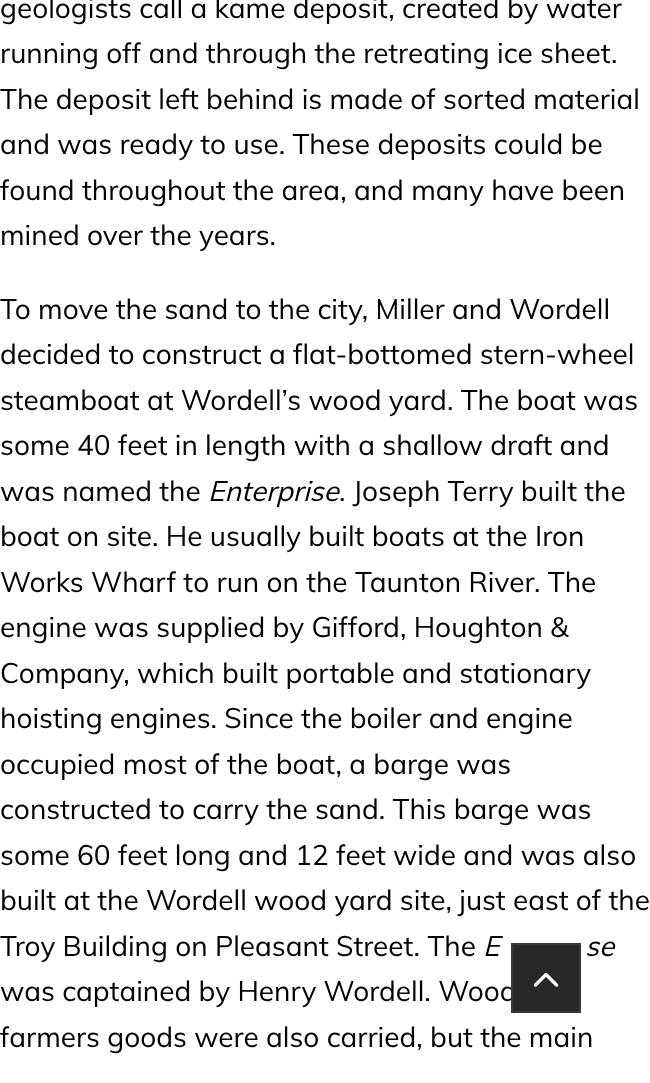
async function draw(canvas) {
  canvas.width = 650
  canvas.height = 1083
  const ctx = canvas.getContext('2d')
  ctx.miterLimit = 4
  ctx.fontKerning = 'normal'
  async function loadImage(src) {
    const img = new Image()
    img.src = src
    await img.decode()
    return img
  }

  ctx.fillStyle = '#fff'
  ctx.fillRect(0, 0, 650, 1083)
  ctx.font = '28px Muli'
  ctx.fillStyle = '#000'
  ctx.fillText('geologists call a kame deposit, created by water', 0, 18)
  ctx.fillText('running off and through the retreating ice sheet.', 0, 63)
  ctx.fillText('The deposit left behind is made of sorted material', 0, 109)
  ctx.fillText('and was ready to use. These deposits could be', 0, 154)
  ctx.fillText('found throughout the area, and many have been', 0, 200)
  ctx.fillText('mined over the years.', 0, 245)
  ctx.fillText('To move the sand to the city, Miller and Wordell', 0, 319)
  ctx.fillText('decided to construct a flat-bottomed stern-wheel', 0, 364)
  ctx.fillText('steamboat at Wordell’s wood yard. The boat was', 0, 410)
  ctx.fillText('some 40 feet in length with a shallow draft and', 0, 455)
  ctx.fillText('was named the', 0, 501)
  ctx.font = 'italic 28px Muli'
  ctx.fillText('Enterprise', 208, 501)
  ctx.font = '28px Muli'
  ctx.fillText('. Joseph Terry built the', 339, 501)
  ctx.fillText('boat on site. He usually built boats at the Iron', 0, 546)
  ctx.fillText('Works Wharf to run on the Taunton River. The', 0, 592)
  ctx.fillText('engine was supplied by Gifford, Houghton &', 0, 637)
  ctx.fillText('Company, which built portable and stationary', 0, 683)
  ctx.fillText('hoisting engines. Since the boiler and engine', 0, 728)
  ctx.fillText('occupied most of the boat, a barge was', 0, 774)
  ctx.fillText('constructed to carry the sand. This barge was', 0, 819)
  ctx.fillText('some 60 feet long and 12 feet wide and was also', 0, 865)
  ctx.fillText('built at the Wordell wood yard site, just east of the', 0, 910)
  ctx.fillText('Troy Building on Pleasant Street. The', 0, 956)
  ctx.font = 'italic 28px Muli'
  ctx.fillText('E', 483, 956)
  ctx.fillText('se', 585, 956)
  ctx.font = '28px Muli'
  ctx.fillText('was captained by Henry Wordell. Wood', 0, 1001)
  ctx.fillText('farmers goods were also carried, but the main', 0, 1047)
  ctx.fillStyle = '#292728'
  ctx.beginPath()
  ctx.rect(512, 944, 68, 68)
  ctx.fill()
  ctx.strokeStyle = '#393838'
  ctx.lineWidth = 2
  ctx.stroke()
  ctx.drawImage(await loadImage('image0.png'), 533, 972, 26, 15)
}

draw(document.querySelector('canvas'))
